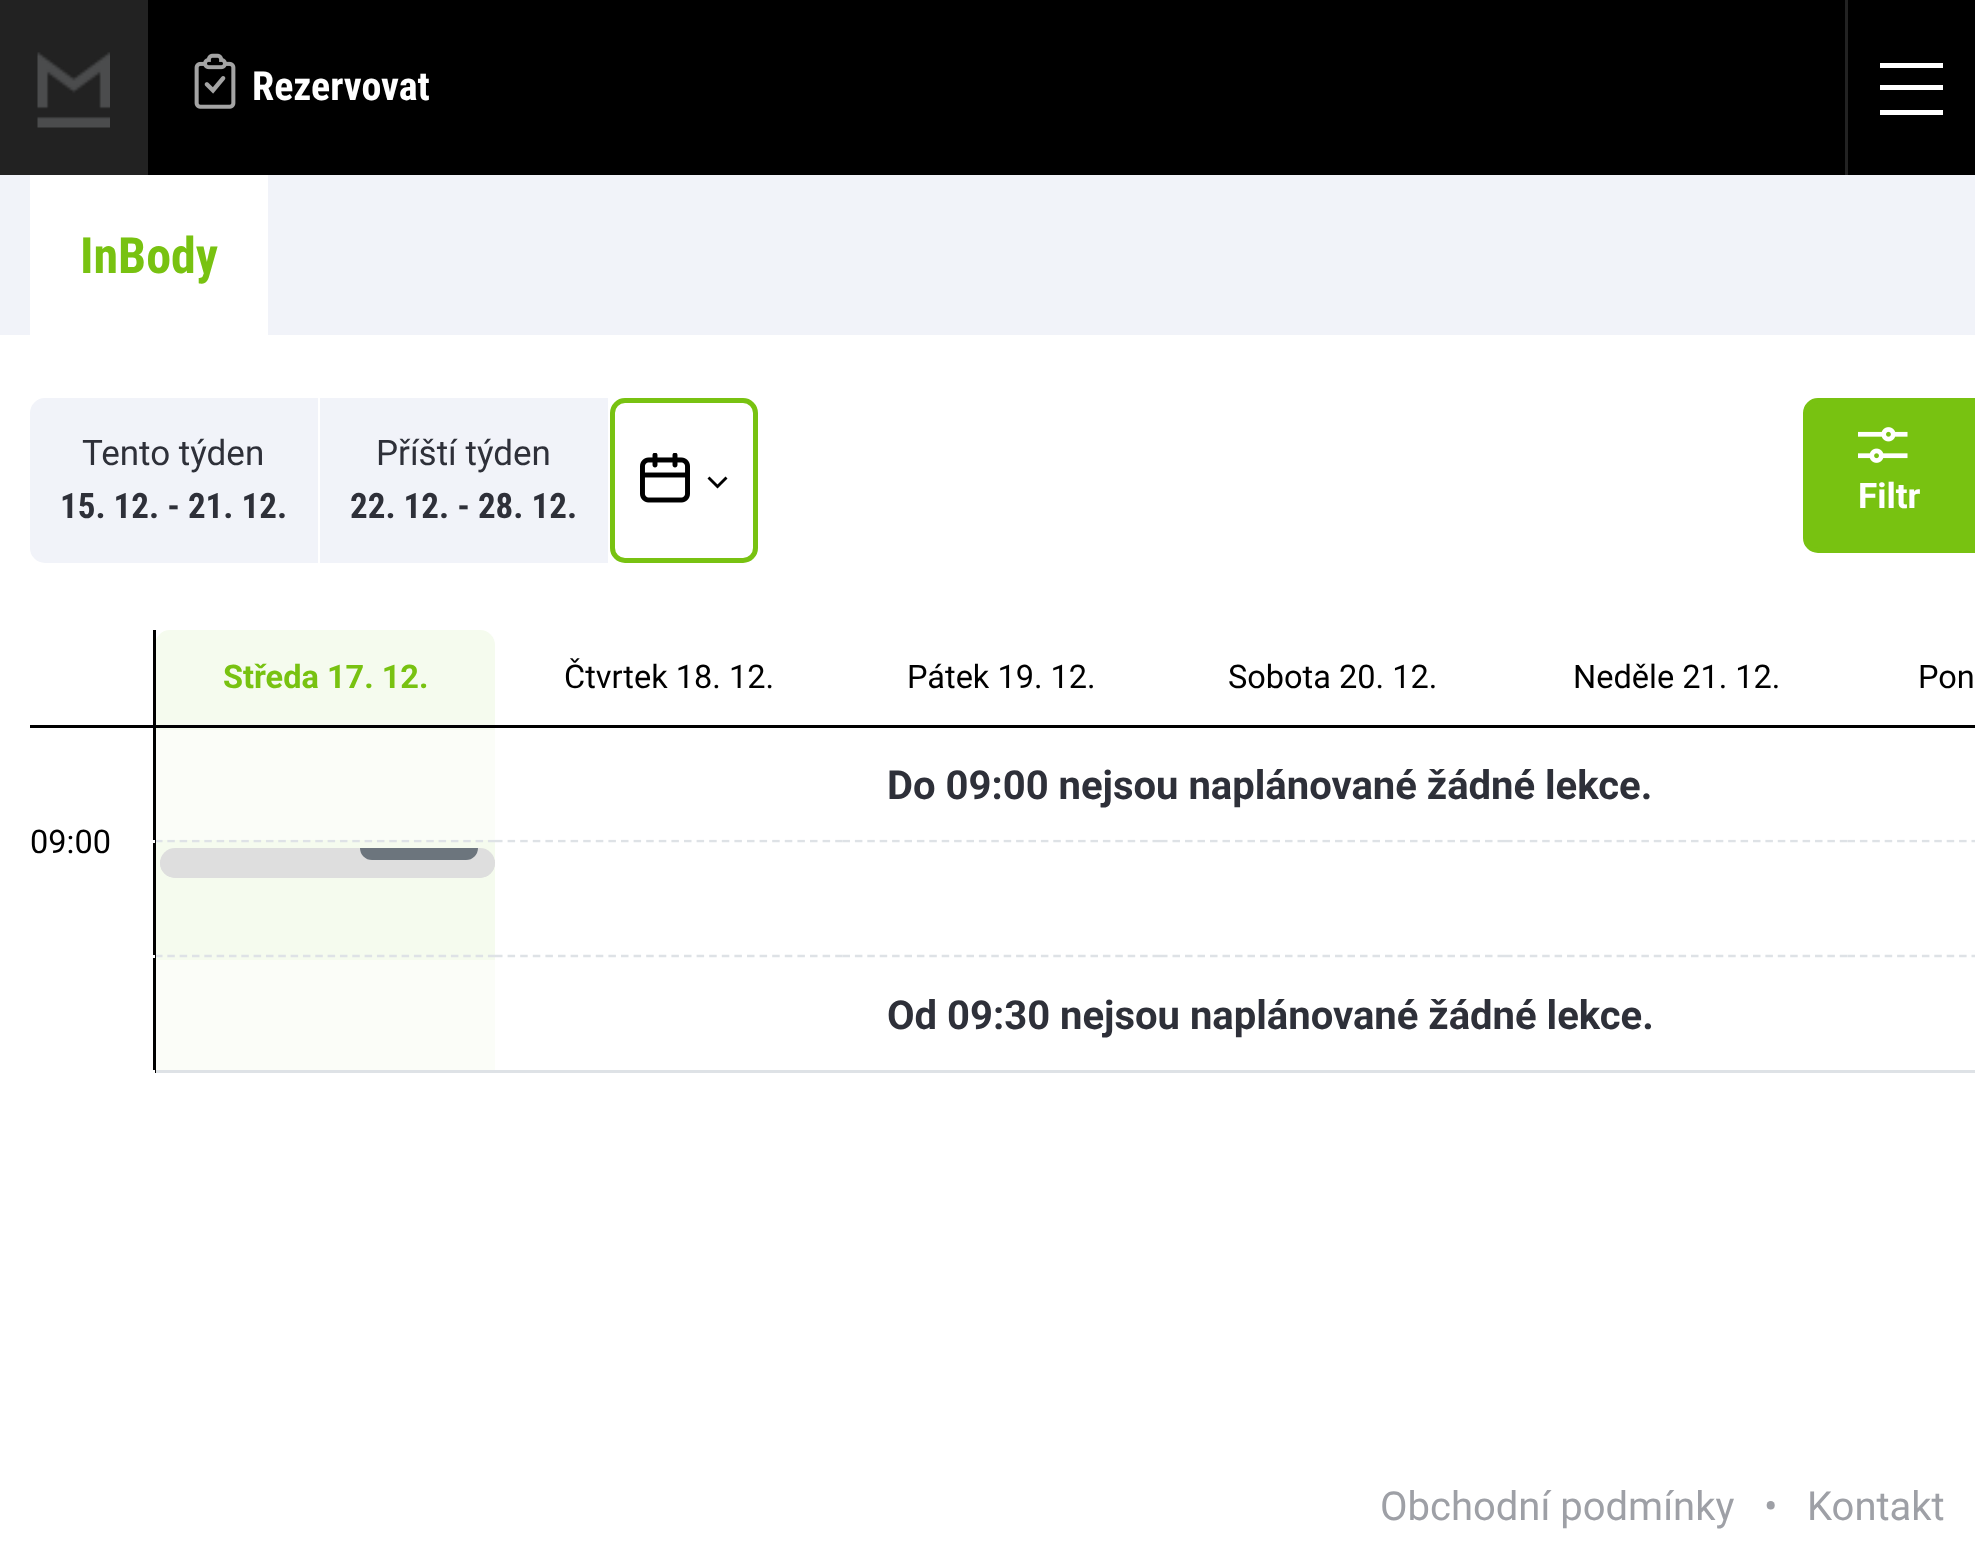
async function draw(canvas) {
  canvas.width = 1975
  canvas.height = 1566
  const ctx = canvas.getContext('2d')
  ctx.miterLimit = 4
  ctx.fontKerning = 'normal'
  async function loadImage(src) {
    const img = new Image()
    img.src = src
    await img.decode()
    return img
  }

  ctx.fillStyle = '#f1f3f9'
  ctx.fillRect(0, 0, 1975, 1566)
  ctx.fillStyle = '#000'
  ctx.fillRect(148, 0, 1827, 175)
  ctx.fillStyle = '#222'
  ctx.fillRect(0, 0, 148, 175)
  ctx.drawImage(await loadImage('image0.png'), 37, 52, 73, 76)
  ctx.drawImage(await loadImage('image1.png'), 194, 53, 42, 56)
  ctx.font = 'bold 40px Roboto Condensed'
  ctx.fillStyle = '#fff'
  ctx.fillText('Rezervovat', 252, 100)
  ctx.fillStyle = '#222'
  ctx.fillRect(1845, 0, 3, 175)
  ctx.fillStyle = '#fff'
  ctx.fillRect(1880, 63, 63, 5)
  ctx.fillRect(1880, 85, 63, 5)
  ctx.fillRect(1880, 110, 63, 5)
  ctx.fillRect(30, 175, 238, 160)
  ctx.font = 'bold 50px Roboto Condensed'
  ctx.fillStyle = '#78c211'
  ctx.fillText('InBody', 80, 273)
  ctx.fillStyle = '#fff'
  ctx.fillRect(0, 335, 1975, 1231)
  ctx.fillStyle = '#f1f3f9'
  ctx.beginPath()
  ctx.roundRect(32.5, 400.5, 283, 160, [12.5, 0, 0, 12.5])
  ctx.fill()
  ctx.strokeStyle = '#f1f3f9'
  ctx.lineWidth = 5
  ctx.stroke()
  ctx.font = '35px Roboto'
  ctx.fillStyle = '#2e3039'
  ctx.fillText('Tento týden', 82, 465)
  ctx.font = 'bold 35px Roboto Condensed'
  ctx.fillText('15. 12. - 21. 12.', 60, 518)
  ctx.fillStyle = '#f1f3f9'
  ctx.fillRect(320, 398, 288, 165)
  ctx.font = '35px Roboto'
  ctx.fillStyle = '#2e3039'
  ctx.fillText('Příští týden', 376, 465)
  ctx.font = 'bold 35px Roboto Condensed'
  ctx.fillText('22. 12. - 28. 12.', 350, 518)
  ctx.beginPath()
  ctx.roundRect(612.5, 400.5, 143, 160, 12.5)
  ctx.strokeStyle = '#78c211'
  ctx.stroke()
  ctx.drawImage(await loadImage('image2.png'), 640, 453, 50, 50)
  ctx.fillStyle = '#000'
  ctx.beginPath()
  ctx.moveTo(717.5, 488.5)
  ctx.lineTo(707.5, 478.5)
  ctx.lineTo(709.5, 476.5)
  ctx.lineTo(717.5, 484.5)
  ctx.lineTo(725.5, 476.5)
  ctx.lineTo(727.5, 478.5)
  ctx.closePath()
  ctx.fill()
  ctx.fillStyle = '#78c211'
  ctx.beginPath()
  ctx.roundRect(1805.5, 400.5, 167, 150, [12.5, 0, 0, 12.5])
  ctx.fill()
  ctx.stroke()
  ctx.drawImage(await loadImage('image3.png'), 1858, 427, 50, 36)
  ctx.font = 'bold 35px Roboto'
  ctx.fillStyle = '#fff'
  ctx.fillText('Filtr', 1858, 508)
  ctx.fillStyle = '#f5fbee'
  ctx.beginPath()
  ctx.roundRect(155, 630, 340, 95, [15, 15, 0, 0])
  ctx.fill()
  ctx.fillStyle = '#000'
  ctx.fillRect(155, 725, 1820, 3)
  ctx.font = 'bold 32.5px Roboto'
  ctx.fillStyle = '#78c211'
  ctx.fillText('Středa 17. 12.', 223, 688)
  ctx.font = '32.5px Roboto'
  ctx.fillStyle = '#000'
  ctx.fillText('Čtvrtek 18. 12.', 564, 688)
  ctx.fillText('Pátek 19. 12.', 907, 688)
  ctx.fillText('Sobota 20. 12.', 1228, 688)
  ctx.fillText('Neděle 21. 12.', 1573, 688)
  ctx.fillText('Pon', 1918, 688)
  ctx.fillStyle = '#f5fbee'
  ctx.fillRect(156, 728, 339, 232)
  ctx.beginPath()
  ctx.moveTo(155, 956)
  ctx.lineTo(495, 956)
  ctx.strokeStyle = '#dee2e6'
  ctx.lineWidth = 2.5
  ctx.setLineDash([7.5, 4.83])
  ctx.stroke()
  ctx.beginPath()
  ctx.moveTo(155, 841)
  ctx.lineTo(495, 841)
  ctx.stroke()
  ctx.fillStyle = '#dee2e6'
  ctx.fillRect(155, 1070, 1820, 3)
  ctx.beginPath()
  ctx.moveTo(495, 841)
  ctx.lineTo(842.5, 841)
  ctx.setLineDash([7.5, 5.1])
  ctx.stroke()
  ctx.beginPath()
  ctx.moveTo(842.5, 841)
  ctx.lineTo(1160, 841)
  ctx.setLineDash([7.5, 4.9])
  ctx.stroke()
  ctx.beginPath()
  ctx.moveTo(1160, 841)
  ctx.lineTo(1505, 841)
  ctx.setLineDash([7.5, 5])
  ctx.stroke()
  ctx.beginPath()
  ctx.moveTo(1505, 841)
  ctx.lineTo(1847.5, 841)
  ctx.setLineDash([7.5, 4.9])
  ctx.stroke()
  ctx.beginPath()
  ctx.moveTo(1847.5, 841)
  ctx.lineTo(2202.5, 841)
  ctx.stroke()
  ctx.fillStyle = '#ffffff99'
  ctx.fillRect(155, 730, 1820, 110)
  ctx.fillStyle = '#000'
  ctx.fillRect(153, 630, 3, 443)
  ctx.fillRect(30, 725, 125, 3)
  ctx.fillStyle = '#fff'
  ctx.fillRect(153, 955, 2, 3)
  ctx.fillStyle = '#000'
  ctx.fillText('09:00', 30, 853)
  ctx.beginPath()
  ctx.moveTo(495, 956)
  ctx.lineTo(842.5, 956)
  ctx.setLineDash([7.5, 5.1])
  ctx.stroke()
  ctx.beginPath()
  ctx.moveTo(842.5, 956)
  ctx.lineTo(1160, 956)
  ctx.setLineDash([7.5, 4.9])
  ctx.stroke()
  ctx.beginPath()
  ctx.moveTo(1160, 956)
  ctx.lineTo(1505, 956)
  ctx.setLineDash([7.5, 5])
  ctx.stroke()
  ctx.beginPath()
  ctx.moveTo(1505, 956)
  ctx.lineTo(1847.5, 956)
  ctx.setLineDash([7.5, 4.9])
  ctx.stroke()
  ctx.beginPath()
  ctx.moveTo(1847.5, 956)
  ctx.lineTo(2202.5, 956)
  ctx.stroke()
  ctx.fillStyle = '#fff'
  ctx.fillRect(153, 840, 2, 3)
  ctx.fillRect(153, 1070, 2, 3)
  ctx.fillStyle = '#fbfdf8'
  ctx.fillRect(156, 960, 339, 110)
  ctx.font = 'bold 40px Roboto'
  ctx.fillStyle = '#2e3039'
  ctx.fillText('Do 09:00 nejsou naplánované žádné lekce.', 887, 799)
  ctx.fillStyle = '#dedede'
  ctx.beginPath()
  ctx.roundRect(160, 848, 335, 30, 15)
  ctx.fill()
  ctx.save()
  ctx.beginPath()
  ctx.roundRect(160, 848, 335, 30, 15)
  ctx.clip()
  ctx.beginPath()
  ctx.roundRect(160, 860, 335, 18, [0, 0, 15, 15])
  ctx.fill()
  ctx.restore()
  ctx.fillStyle = '#6c757d'
  ctx.beginPath()
  ctx.roundRect(360, 848, 118, 12, [0, 0, 15, 15])
  ctx.fill()
  ctx.fillStyle = '#2e3039'
  ctx.fillText('Od 09:30 nejsou naplánované žádné lekce.', 887, 1029)
  ctx.font = '40px Roboto'
  ctx.fillStyle = '#9ea0a6'
  ctx.fillText('Obchodní podmínky', 1380, 1520)
  ctx.fillText('•', 1764, 1520)
  ctx.fillText('Kontakt', 1807, 1520)
}

draw(document.querySelector('canvas'))
